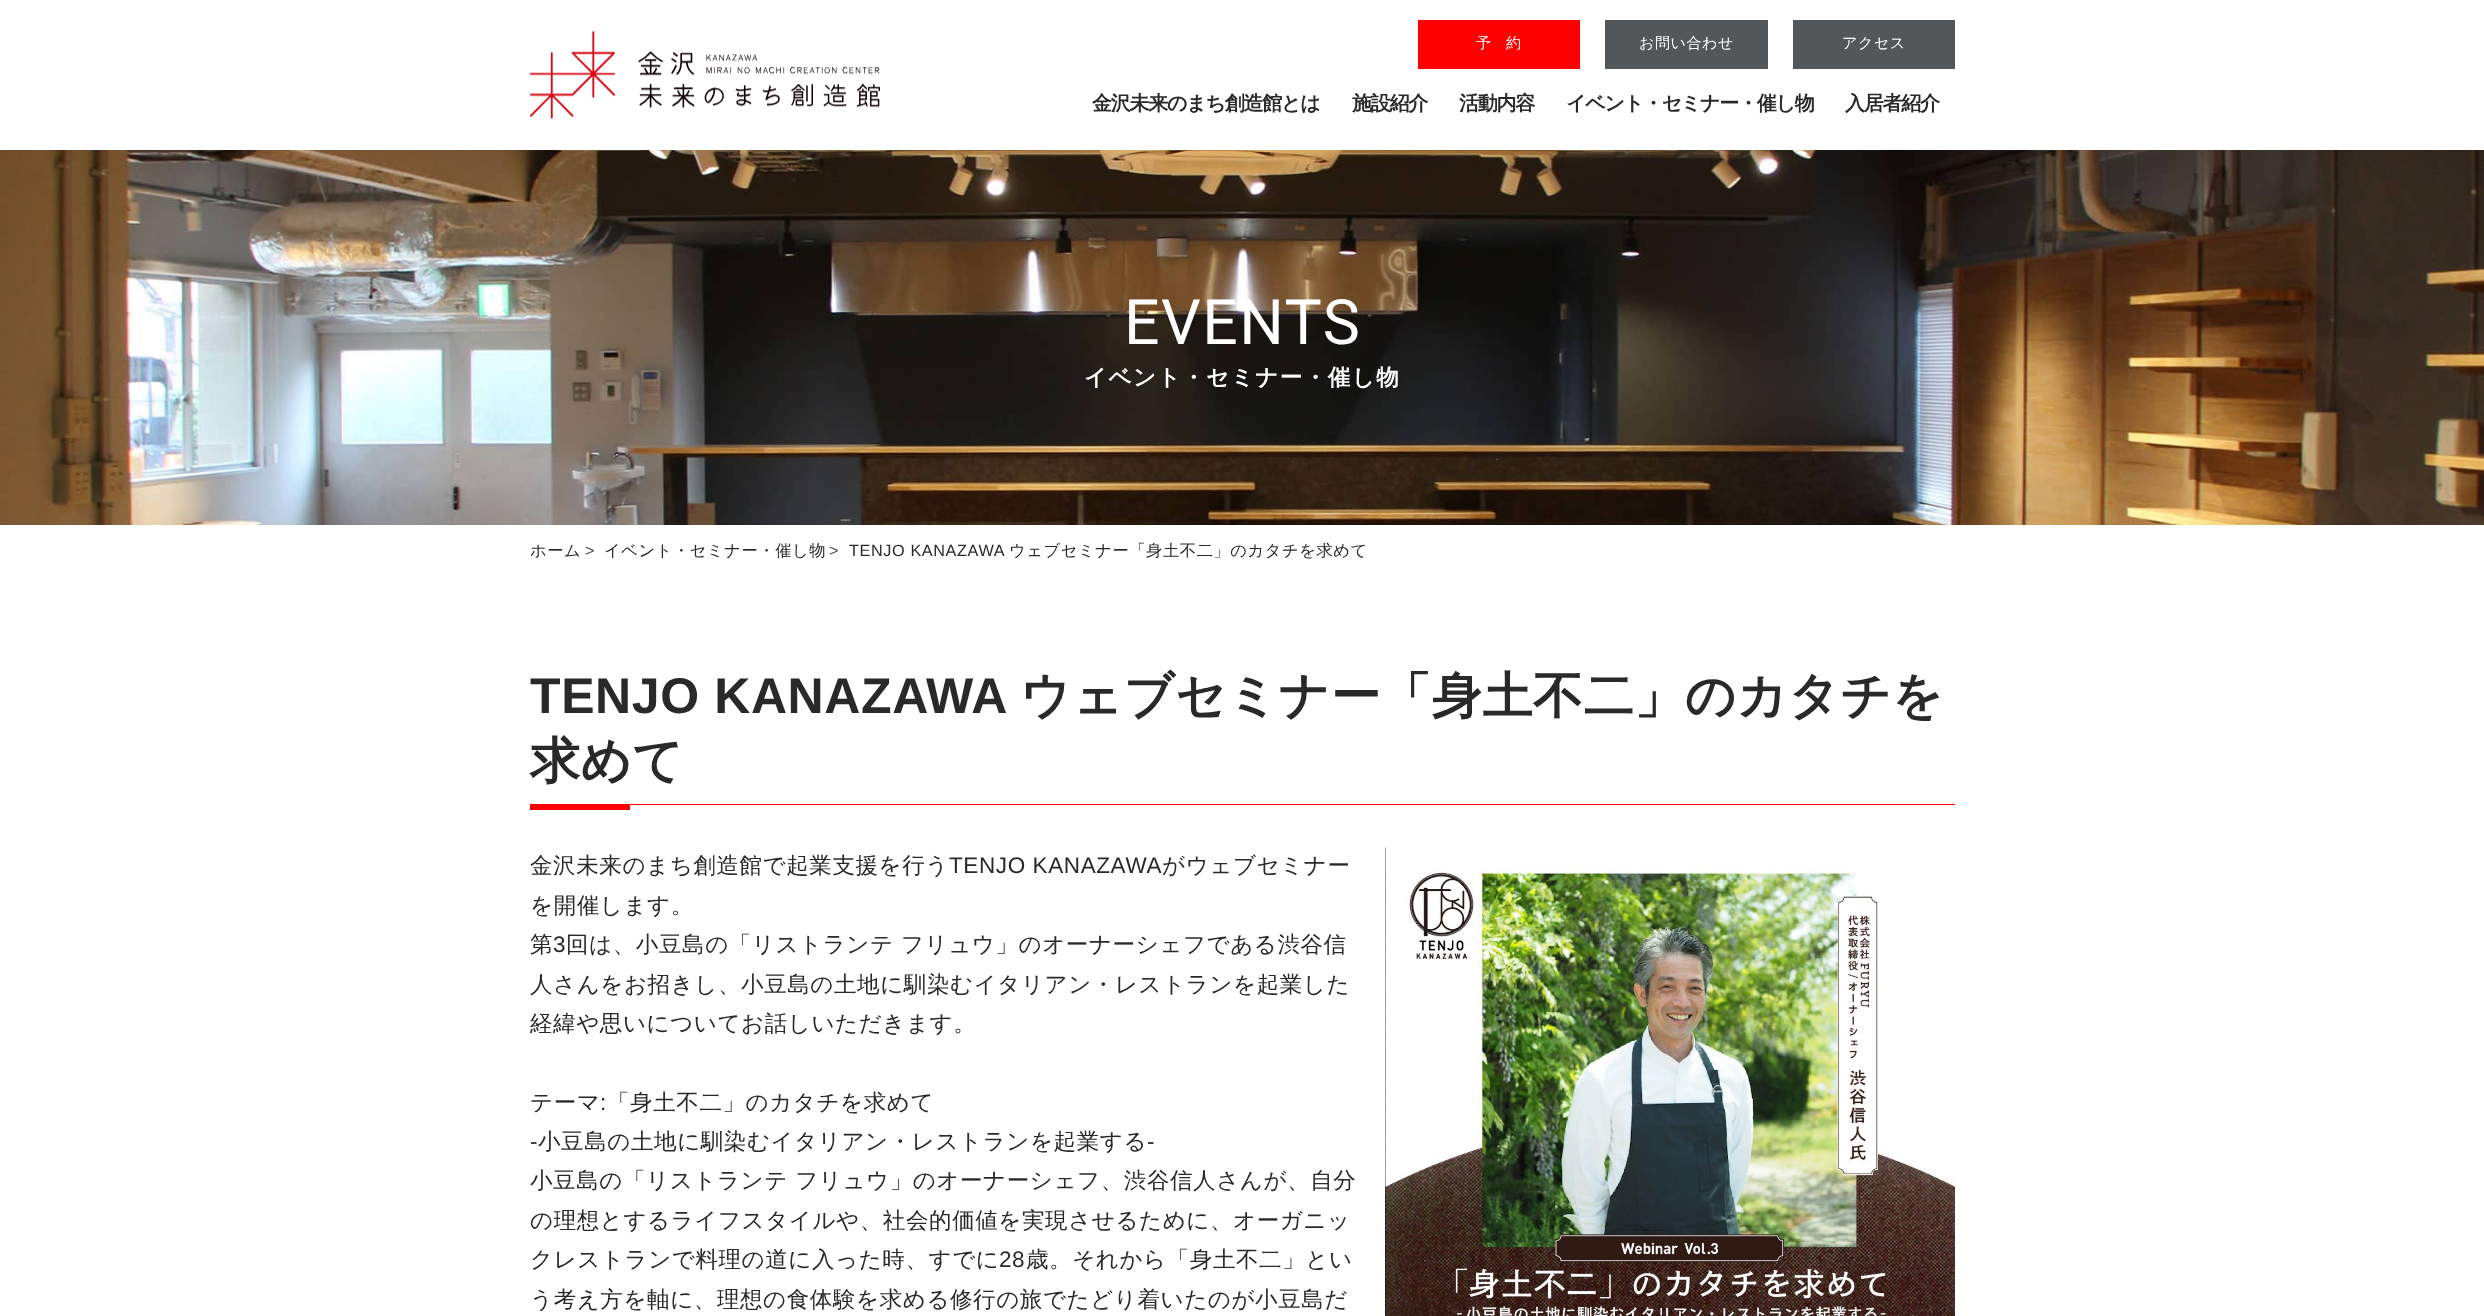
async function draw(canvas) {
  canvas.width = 2484
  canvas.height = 1316
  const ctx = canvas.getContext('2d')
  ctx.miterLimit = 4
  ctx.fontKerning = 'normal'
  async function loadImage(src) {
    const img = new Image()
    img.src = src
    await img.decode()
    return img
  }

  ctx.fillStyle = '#fff'
  ctx.fillRect(0, 0, 2484, 1316)
  ctx.drawImage(await loadImage('image0.png'), 530, 31, 350, 89)
  ctx.fillStyle = '#f00'
  ctx.fillRect(1418, 20, 162, 49)
  ctx.letterSpacing = '15px'
  ctx.font = '500 15px Noto Sans'
  ctx.fillStyle = '#fff'
  ctx.fillText('予', 1476, 48)
  ctx.font = '500 15px WenQuanYi Zen Hei'
  ctx.fillText('約', 1506, 48)
  ctx.fillStyle = '#54575a'
  ctx.fillRect(1605, 20, 163, 49)
  ctx.letterSpacing = '0.6px'
  ctx.fillStyle = '#fff'
  ctx.fillText('お問い合わせ', 1639, 48)
  ctx.fillStyle = '#54575a'
  ctx.fillRect(1793, 20, 162, 49)
  ctx.fillStyle = '#fff'
  ctx.fillText('アクセス', 1842, 48)
  ctx.letterSpacing = '-1.25px'
  ctx.font = 'bold 20px WenQuanYi Zen Hei'
  ctx.fillStyle = '#292929'
  ctx.fillText('金沢未来のまち創造館とは', 1092, 110)
  ctx.fillText('施設紹介', 1352, 110)
  ctx.fillText('活動内容', 1459, 110)
  ctx.fillText('イベント・セミナー・催し物', 1566, 110)
  ctx.fillText('入居者紹介', 1845, 110)
  ctx.drawImage(await loadImage('image1.png'), 0, 150, 2484, 375)
  ctx.letterSpacing = '1.5px'
  ctx.font = '62.5px Roboto'
  ctx.fillStyle = '#fff'
  ctx.fillText('EVENTS', 1124, 344)
  ctx.font = 'bold 22.5px WenQuanYi Zen Hei'
  ctx.fillText('イベント・セミナー・催し物', 1084, 385)
  ctx.letterSpacing = '0.6px'
  ctx.font = '500 16.25px WenQuanYi Zen Hei'
  ctx.fillStyle = '#292929'
  ctx.fillText('ホーム', 530, 556)
  ctx.font = '16.25px Liberation Sans'
  ctx.fillStyle = '#555'
  ctx.fillText('>', 585, 556)
  ctx.font = '500 16.25px WenQuanYi Zen Hei'
  ctx.fillStyle = '#292929'
  ctx.fillText('イベント・セミナー・催し物', 604, 556)
  ctx.font = '16.25px Liberation Sans'
  ctx.fillStyle = '#555'
  ctx.fillText('>', 829, 556)
  ctx.fillStyle = '#292929'
  ctx.fillText('TENJO KANAZAWA', 849, 556)
  ctx.font = '500 16.25px WenQuanYi Zen Hei'
  ctx.fillText('ウェブセミナー「身土不二」のカタチを求めて', 1009, 556)
  ctx.fillStyle = '#f00'
  ctx.fillRect(630, 804, 1325, 1)
  ctx.font = 'bold 50px Liberation Sans'
  ctx.fillStyle = '#292929'
  ctx.fillText('TENJO KANAZAWA', 530, 713)
  ctx.font = 'bold 50px WenQuanYi Zen Hei'
  ctx.fillText('ウェブセミナー「身土不二」のカタチを', 1020, 713)
  ctx.fillText('求めて', 530, 778)
  ctx.fillStyle = '#f00'
  ctx.fillRect(530, 804, 100, 6)
  ctx.font = '500 22.5px WenQuanYi Zen Hei'
  ctx.fillStyle = '#292929'
  ctx.fillText('金沢未来のまち創造館で起業支援を行う', 530, 873)
  ctx.font = '22.5px Liberation Sans'
  ctx.fillText('TENJO KANAZAWA', 949, 873)
  ctx.font = '500 22.5px WenQuanYi Zen Hei'
  ctx.fillText('がウェブセミナー', 1162, 873)
  ctx.fillText('を開催します。', 530, 913)
  ctx.fillText('第', 530, 952)
  ctx.font = '22.5px Liberation Sans'
  ctx.fillText('3', 553, 952)
  ctx.font = '500 22.5px WenQuanYi Zen Hei'
  ctx.fillText('回は、小豆島の「リストランテ フリュウ」のオーナーシェフである渋谷信', 566, 952)
  ctx.fillText('人さんをお招きし、小豆島の土地に馴染むイタリアン・レストランを起業した', 530, 992)
  ctx.fillText('経緯や思いについてお話しいただきます。', 530, 1031)
  ctx.fillText('テーマ', 530, 1110)
  ctx.font = '22.5px Liberation Sans'
  ctx.fillText(':', 600, 1110)
  ctx.font = '500 22.5px WenQuanYi Zen Hei'
  ctx.fillText('「身土不二」のカタチを求めて', 607, 1110)
  ctx.font = '22.5px Liberation Sans'
  ctx.fillText('-', 530, 1149)
  ctx.font = '500 22.5px WenQuanYi Zen Hei'
  ctx.fillText('小豆島の土地に馴染むイタリアン・レストランを起業する', 538, 1149)
  ctx.font = '22.5px Liberation Sans'
  ctx.fillText('-', 1147, 1149)
  ctx.font = '500 22.5px WenQuanYi Zen Hei'
  ctx.fillText('小豆島の「リストランテ フリュウ」のオーナーシェフ、渋谷信人さんが、自分', 530, 1188)
  ctx.fillText('の理想とするライフスタイルや、社会的価値を実現させるために、オーガニッ', 530, 1228)
  ctx.fillText('クレストランで料理の道に入った時、すでに', 530, 1267)
  ctx.font = '22.5px Liberation Sans'
  ctx.fillText('28', 999, 1267)
  ctx.font = '500 22.5px WenQuanYi Zen Hei'
  ctx.fillText('歳。それから「身土不二」とい', 1026, 1267)
  ctx.fillText('う考え方を軸に、理想の食体験を求める修行の旅でたどり着いたのが小豆島だ', 530, 1307)
  ctx.drawImage(await loadImage('image2.png'), 1385, 847, 570, 469)
}

draw(document.querySelector('canvas'))
